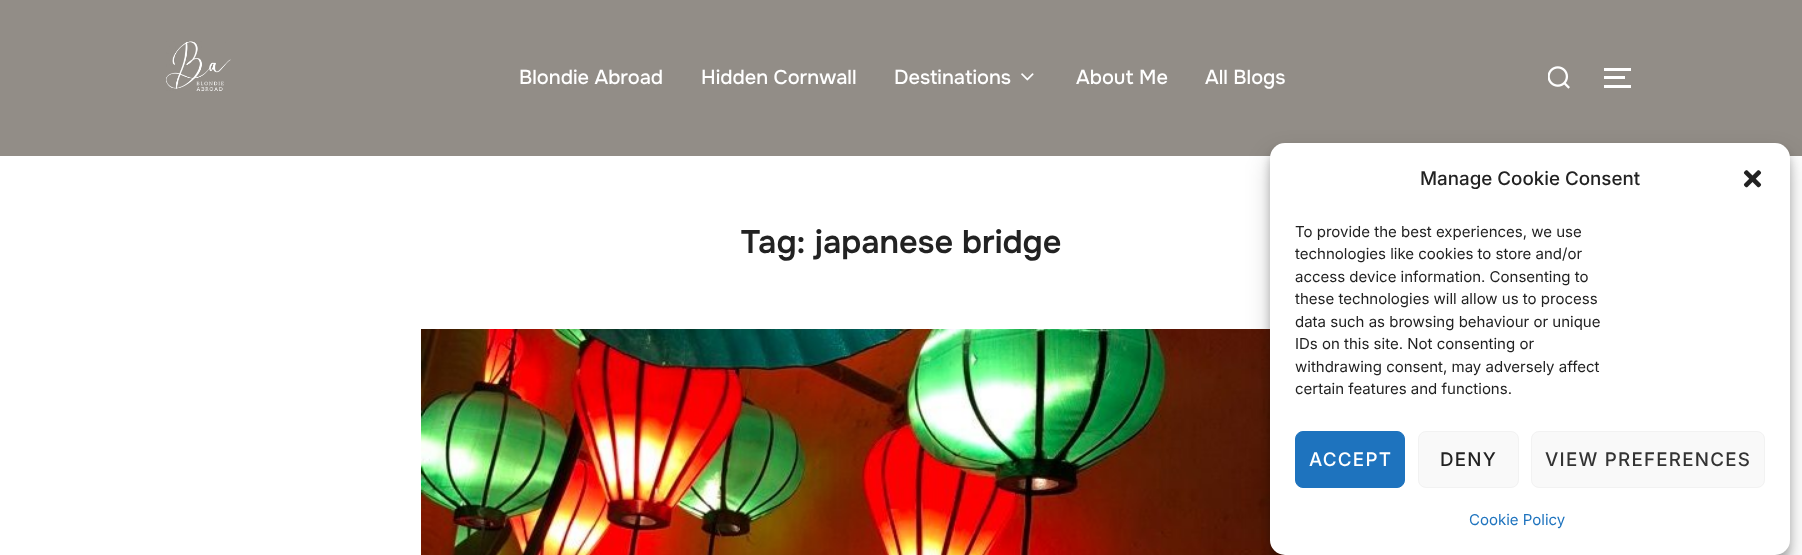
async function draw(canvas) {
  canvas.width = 1802
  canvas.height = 555
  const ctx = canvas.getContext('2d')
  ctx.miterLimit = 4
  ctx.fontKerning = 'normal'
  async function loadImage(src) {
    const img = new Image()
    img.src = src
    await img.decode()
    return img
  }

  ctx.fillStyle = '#fff'
  ctx.fillRect(0, 0, 1802, 555)
  ctx.fillStyle = '#928d87'
  ctx.fillRect(0, 0, 1802, 156)
  ctx.drawImage(await loadImage('image0.png'), 166, 41, 65, 50)
  ctx.font = '500 20px Onest'
  ctx.fillStyle = '#fff'
  ctx.fillText('Blondie Abroad', 519, 84)
  ctx.fillText('Hidden Cornwall', 701, 84)
  ctx.fillText('Destinations', 894, 84)
  ctx.drawImage(await loadImage('image1.png'), 1021, 73, 13, 8)
  ctx.fillText('About Me', 1076, 84)
  ctx.fillText('All Blogs', 1205, 84)
  ctx.drawImage(await loadImage('image2.png'), 1548, 66, 22, 23)
  ctx.fillRect(1604, 68, 27, 3)
  ctx.fillRect(1604, 76, 21, 3)
  ctx.fillRect(1604, 85, 27, 3)
  ctx.font = '600 32.5px Onest'
  ctx.fillStyle = '#222'
  ctx.fillText('Tag: japanese bridge', 741, 253)
  ctx.drawImage(await loadImage('image3.png'), 421, 329, 864, 226)
  ctx.fillStyle = '#0000003b'
  ctx.filter = 'blur(4px)'
  ctx.beginPath()
  ctx.roundRect(1270, 150, 520, 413, 15)
  ctx.fill()
  ctx.filter = 'none'
  ctx.fillStyle = '#00000030'
  ctx.filter = 'blur(12.5px)'
  ctx.beginPath()
  ctx.roundRect(1270, 155, 520, 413, 15)
  ctx.fill()
  ctx.filter = 'none'
  ctx.fillStyle = '#fff'
  ctx.beginPath()
  ctx.roundRect(1270, 143, 520, 412, 15)
  ctx.fill()
  ctx.font = '500 18.75px Inter'
  ctx.fillStyle = '#222'
  ctx.fillText('Manage Cookie Consent', 1420, 185)
  ctx.drawImage(await loadImage('image4.png'), 1743, 170, 19, 18)
  ctx.font = '15px Inter'
  ctx.fillText('To provide the best experiences, we use', 1295, 237)
  ctx.fillText('technologies like cookies to store and/or', 1295, 259)
  ctx.fillText('access device information. Consenting to', 1295, 282)
  ctx.fillText('these technologies will allow us to process', 1295, 304)
  ctx.fillText('data such as browsing behaviour or unique', 1295, 327)
  ctx.fillText('IDs on this site. Not consenting or', 1295, 349)
  ctx.fillText('withdrawing consent, may adversely affect', 1295, 372)
  ctx.fillText('certain features and functions.', 1295, 394)
  ctx.fillStyle = '#1e73be'
  ctx.beginPath()
  ctx.roundRect(1295.5, 431.5, 109, 56, 7.5)
  ctx.fill()
  ctx.strokeStyle = '#1e73be'
  ctx.stroke()
  ctx.letterSpacing = '1.25px'
  ctx.font = '500 18.75px Inter'
  ctx.fillStyle = '#fff'
  ctx.fillText('ACCEPT', 1309, 466)
  ctx.fillStyle = '#f9f9f9'
  ctx.beginPath()
  ctx.roundRect(1418.5, 431.5, 100, 56, 7.5)
  ctx.fill()
  ctx.strokeStyle = '#f2f2f2'
  ctx.stroke()
  ctx.fillStyle = '#222'
  ctx.fillText('DENY', 1440, 466)
  ctx.fillStyle = '#f9f9f9'
  ctx.beginPath()
  ctx.roundRect(1531.5, 431.5, 233, 56, 7.5)
  ctx.fill()
  ctx.stroke()
  ctx.fillStyle = '#333'
  ctx.fillText('VIEW PREFERENCES', 1545, 466)
  ctx.letterSpacing = '0px'
  ctx.font = '15px Inter'
  ctx.fillStyle = '#1e73be'
  ctx.fillText('Cookie Policy', 1469, 525)
}

draw(document.querySelector('canvas'))
